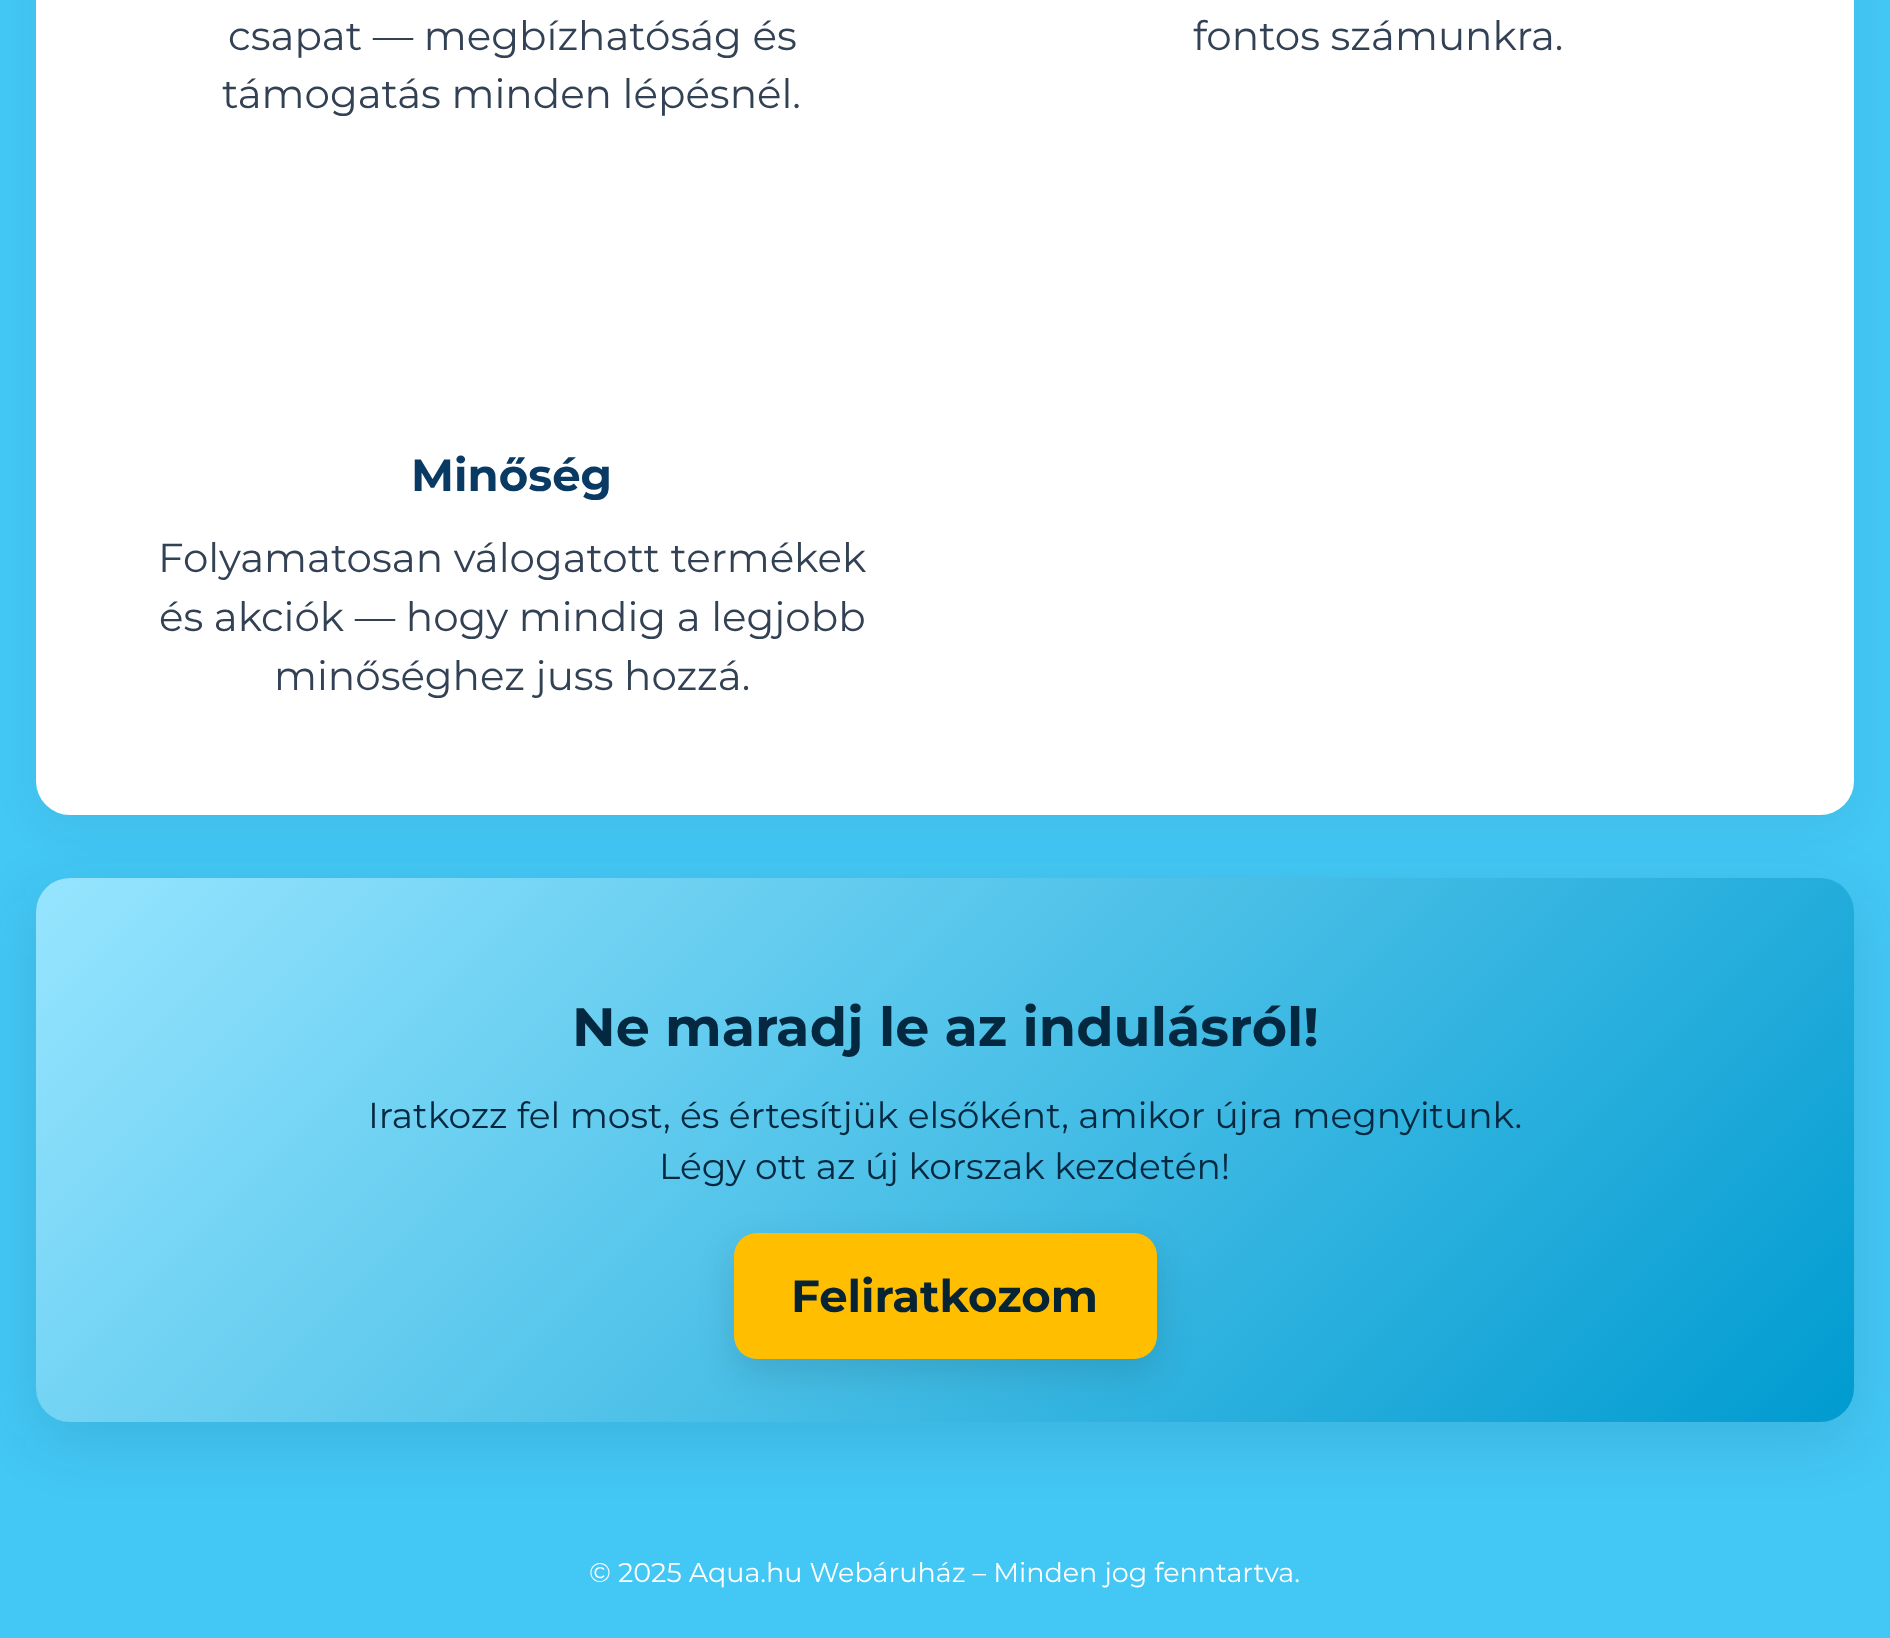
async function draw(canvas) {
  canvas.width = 1890
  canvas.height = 1638
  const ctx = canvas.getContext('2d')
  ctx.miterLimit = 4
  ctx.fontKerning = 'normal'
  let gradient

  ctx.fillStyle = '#43c7f4'
  ctx.fillRect(0, 0, 1890, 1638)
  ctx.fillStyle = '#0f1e3c0f'
  ctx.filter = 'blur(20px)'
  ctx.beginPath()
  ctx.roundRect(36, -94, 1818, 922, 34)
  ctx.fill()
  ctx.filter = 'none'
  ctx.fillStyle = '#fff'
  ctx.beginPath()
  ctx.roundRect(36, -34, 1818, 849, 34)
  ctx.fill()
  ctx.font = '40.5px Montserrat'
  ctx.fillStyle = '#334155'
  ctx.fillText('csapat — megbízhatóság és', 228, 50)
  ctx.fillText('támogatás minden lépésnél.', 222, 108)
  ctx.fillText('fontos számunkra.', 1193, 50)
  ctx.font = 'bold 45px Montserrat'
  ctx.fillStyle = '#083a63'
  ctx.fillText('Minőség', 411, 491)
  ctx.font = '40.5px Montserrat'
  ctx.fillStyle = '#334155'
  ctx.fillText('Folyamatosan válogatott termékek', 158, 572)
  ctx.fillText('és akciók — hogy mindig a legjobb', 159, 631)
  ctx.fillText('minőséghez juss hozzá.', 274, 690)
  ctx.fillStyle = '#061e461f'
  ctx.filter = 'blur(31.5px)'
  ctx.beginPath()
  ctx.roundRect(36, 896, 1818, 544, 34)
  ctx.fill()
  ctx.filter = 'none'
  gradient = ctx.createLinearGradient(354, 559, 1536, 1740)
  gradient.addColorStop(0, '#97e5ff')
  gradient.addColorStop(1, '#009bd0')
  ctx.fillStyle = gradient
  ctx.beginPath()
  ctx.roundRect(36, 878, 1818, 544, 34)
  ctx.fill()
  ctx.font = 'bold 54px Montserrat'
  ctx.fillStyle = '#04283f'
  ctx.fillText('Ne maradj le az indulásról!', 572, 1046)
  ctx.font = '36px Montserrat'
  ctx.fillText('Iratkozz fel most, és értesítjük elsőként, amikor újra megnyitunk.', 368, 1128)
  ctx.fillText('Légy ott az új korszak kezdetén!', 659, 1179)
  ctx.fillStyle = '#0000001f'
  ctx.filter = 'blur(18px)'
  ctx.beginPath()
  ctx.roundRect(734, 1247, 423, 126, 23)
  ctx.fill()
  ctx.filter = 'none'
  ctx.fillStyle = '#ffbe00'
  ctx.beginPath()
  ctx.roundRect(734, 1233, 423, 126, 23)
  ctx.fill()
  ctx.font = 'bold 45px Montserrat'
  ctx.fillStyle = '#062433'
  ctx.fillText('Feliratkozom', 791, 1312)
  ctx.font = '27px Montserrat'
  ctx.fillStyle = '#fff'
  ctx.fillText('© 2025 Aqua.hu Webáruház – Minden jog fenntartva.', 589, 1582)
}

draw(document.querySelector('canvas'))
